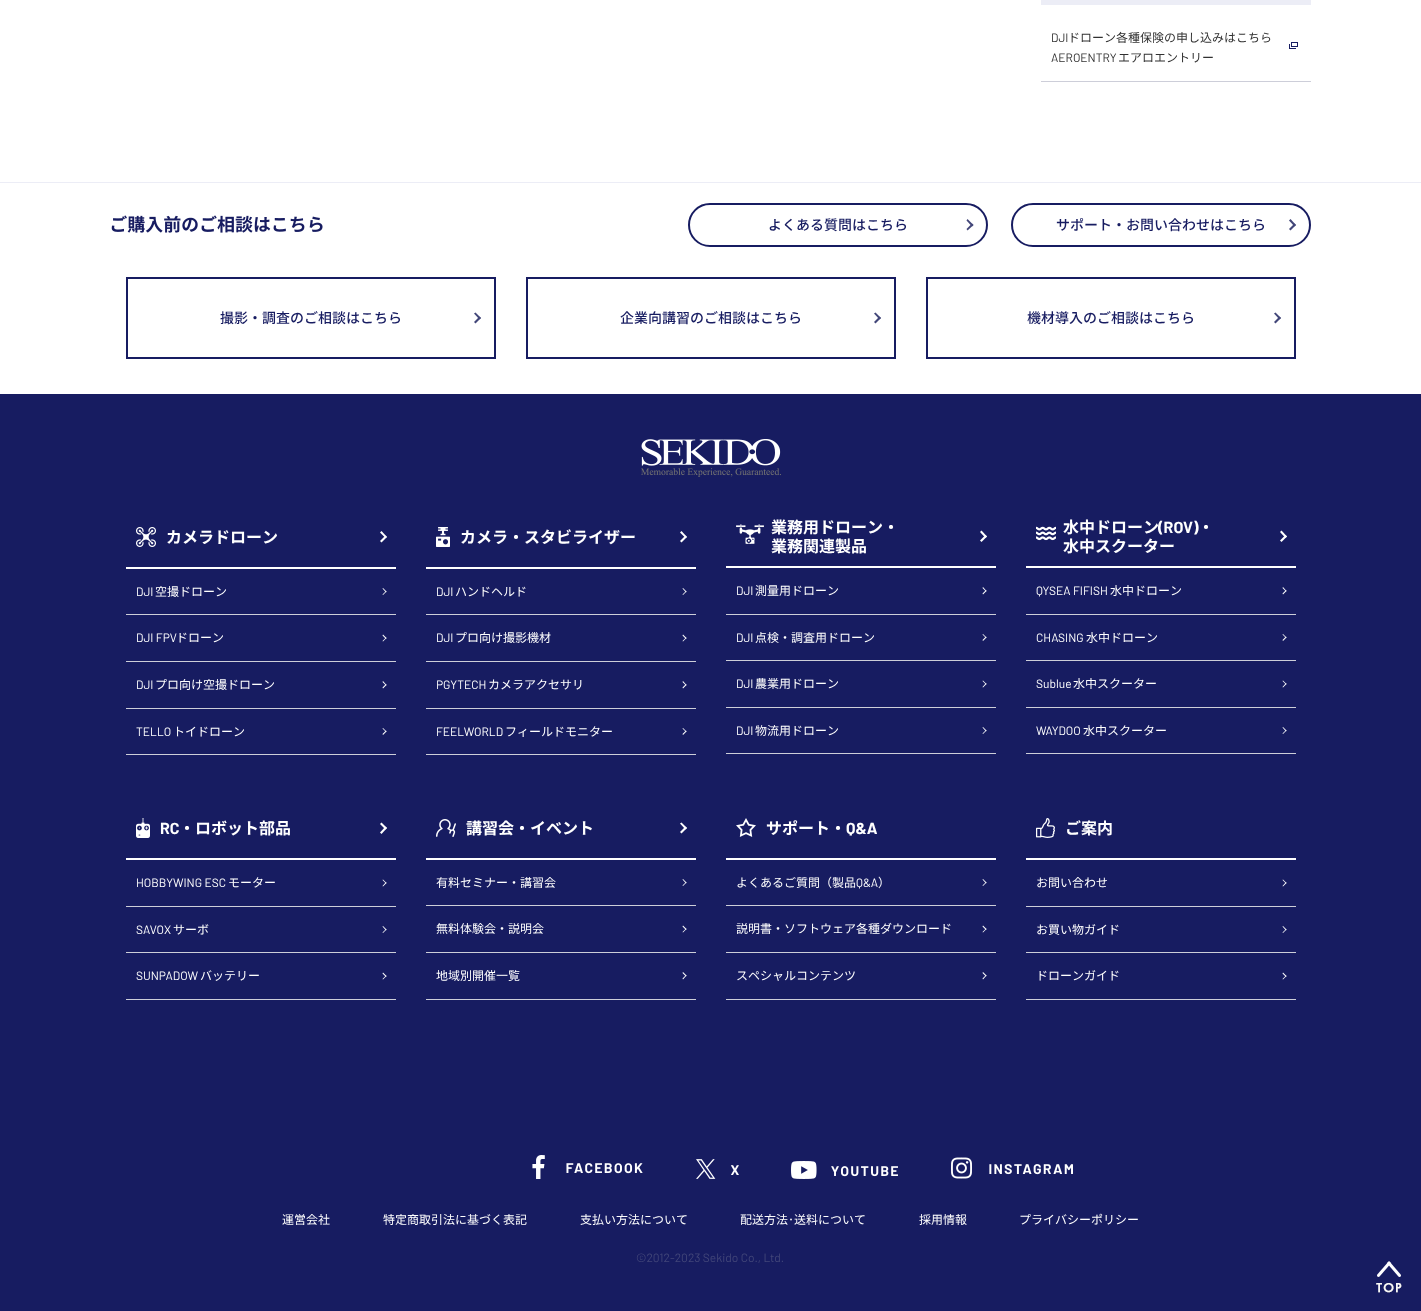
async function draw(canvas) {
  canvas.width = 1421
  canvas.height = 1311
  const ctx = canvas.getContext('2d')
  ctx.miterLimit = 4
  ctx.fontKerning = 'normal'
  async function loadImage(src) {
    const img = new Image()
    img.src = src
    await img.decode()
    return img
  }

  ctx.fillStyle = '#fff'
  ctx.fillRect(0, 0, 1421, 1311)
  ctx.fillStyle = '#ecedf6'
  ctx.fillRect(1041, 0, 270, 5)
  ctx.fillStyle = '#cdced9'
  ctx.fillRect(1041, 81, 270, 1)
  ctx.font = '12px Barlow'
  ctx.fillStyle = '#313131'
  ctx.fillText('DJI', 1051, 42)
  ctx.font = '12px Noto Sans JP'
  ctx.fillText('ドローン各種保険の申し込みはこちら', 1068, 42)
  ctx.drawImage(await loadImage('image0.png'), 1289, 42, 9, 7)
  ctx.font = '12px Barlow'
  ctx.fillText('AEROENTRY', 1051, 62)
  ctx.font = '12px Noto Sans JP'
  ctx.fillText('エアロエントリー', 1118, 62)
  ctx.fillStyle = '#ecedf6'
  ctx.fillRect(0, 182, 1421, 1)
  ctx.drawImage(await loadImage('image1.png'), 111, 215, 212, 18)
  ctx.beginPath()
  ctx.roundRect(689, 204, 298, 42, 21)
  ctx.strokeStyle = '#171c61'
  ctx.lineWidth = 2
  ctx.stroke()
  ctx.font = '500 14px Noto Sans JP'
  ctx.fillStyle = '#171c61'
  ctx.fillText('よくある質問はこちら', 768, 230)
  ctx.fillStyle = '#424679'
  ctx.beginPath()
  ctx.moveTo(967.5, 219)
  ctx.lineTo(973.5, 225)
  ctx.lineTo(972, 226.5)
  ctx.lineTo(966.5, 220.5)
  ctx.closePath()
  ctx.fill()
  ctx.beginPath()
  ctx.moveTo(972, 223.5)
  ctx.lineTo(973.5, 225)
  ctx.lineTo(967.5, 230.5)
  ctx.lineTo(966.5, 229)
  ctx.closePath()
  ctx.fill()
  ctx.beginPath()
  ctx.roundRect(1012, 204, 298, 42, 21)
  ctx.stroke()
  ctx.fillStyle = '#171c61'
  ctx.fillText('サポート・お問い合わせはこちら', 1056, 230)
  ctx.fillStyle = '#424679'
  ctx.beginPath()
  ctx.moveTo(1290.5, 219)
  ctx.lineTo(1296, 225)
  ctx.lineTo(1294.5, 226.5)
  ctx.lineTo(1289, 220.5)
  ctx.closePath()
  ctx.fill()
  ctx.beginPath()
  ctx.moveTo(1294.5, 223.5)
  ctx.lineTo(1296, 225)
  ctx.lineTo(1290.5, 230.5)
  ctx.lineTo(1289, 229)
  ctx.closePath()
  ctx.fill()
  ctx.strokeRect(127, 278, 368, 80)
  ctx.fillStyle = '#171c61'
  ctx.fillText('撮影・調査のご相談はこちら', 220, 323)
  ctx.fillStyle = '#424679'
  ctx.beginPath()
  ctx.moveTo(475.5, 312.5)
  ctx.lineTo(481, 318)
  ctx.lineTo(479.5, 319.5)
  ctx.lineTo(474, 313.5)
  ctx.closePath()
  ctx.fill()
  ctx.beginPath()
  ctx.moveTo(479.5, 316.5)
  ctx.lineTo(481, 318)
  ctx.lineTo(475.5, 323.5)
  ctx.lineTo(474, 322)
  ctx.closePath()
  ctx.fill()
  ctx.strokeRect(527, 278, 368, 80)
  ctx.fillStyle = '#171c61'
  ctx.fillText('企業向講習のご相談はこちら', 620, 323)
  ctx.fillStyle = '#424679'
  ctx.beginPath()
  ctx.moveTo(875.5, 312.5)
  ctx.lineTo(881, 318)
  ctx.lineTo(879.5, 319.5)
  ctx.lineTo(874, 313.5)
  ctx.closePath()
  ctx.fill()
  ctx.beginPath()
  ctx.moveTo(879.5, 316.5)
  ctx.lineTo(881, 318)
  ctx.lineTo(875.5, 323.5)
  ctx.lineTo(874, 322)
  ctx.closePath()
  ctx.fill()
  ctx.strokeRect(927, 278, 368, 80)
  ctx.fillStyle = '#171c61'
  ctx.fillText('機材導入のご相談はこちら', 1027, 323)
  ctx.fillStyle = '#424679'
  ctx.beginPath()
  ctx.moveTo(1275.5, 312.5)
  ctx.lineTo(1281, 318)
  ctx.lineTo(1279.5, 319.5)
  ctx.lineTo(1274, 313.5)
  ctx.closePath()
  ctx.fill()
  ctx.beginPath()
  ctx.moveTo(1279.5, 316.5)
  ctx.lineTo(1281, 318)
  ctx.lineTo(1275.5, 323.5)
  ctx.lineTo(1274, 322)
  ctx.closePath()
  ctx.fill()
  ctx.fillStyle = '#171c61'
  ctx.fillRect(0, 394, 1421, 917)
  ctx.drawImage(await loadImage('image2.png'), 641, 439, 140, 38)
  ctx.fillStyle = '#fff'
  ctx.fillRect(126, 567, 270, 2)
  ctx.drawImage(await loadImage('image3.png'), 136, 527, 20, 20)
  ctx.font = 'bold 16px Noto Sans JP'
  ctx.fillText('カメラドローン', 166, 543)
  ctx.beginPath()
  ctx.moveTo(381.5, 531)
  ctx.lineTo(387, 537)
  ctx.lineTo(385.5, 538)
  ctx.lineTo(380, 532.5)
  ctx.closePath()
  ctx.fill()
  ctx.beginPath()
  ctx.moveTo(385.5, 535.5)
  ctx.lineTo(387, 537)
  ctx.lineTo(381.5, 542.5)
  ctx.lineTo(380, 541)
  ctx.closePath()
  ctx.fill()
  ctx.fillStyle = '#cdced9'
  ctx.fillRect(126, 614, 270, 1)
  ctx.font = '12px Barlow'
  ctx.fillStyle = '#fff'
  ctx.fillText('DJI', 136, 596)
  ctx.font = '12px Noto Sans JP'
  ctx.fillText('空撮ドローン', 155, 596)
  ctx.beginPath()
  ctx.moveTo(383, 588)
  ctx.lineTo(386.5, 591.5)
  ctx.lineTo(386, 592.5)
  ctx.lineTo(382.5, 588.5)
  ctx.closePath()
  ctx.fill()
  ctx.beginPath()
  ctx.moveTo(386, 591)
  ctx.lineTo(386.5, 591.5)
  ctx.lineTo(383, 595)
  ctx.lineTo(382.5, 594.5)
  ctx.closePath()
  ctx.fill()
  ctx.fillStyle = '#cdced9'
  ctx.fillRect(126, 661, 270, 1)
  ctx.font = '12px Barlow'
  ctx.fillStyle = '#fff'
  ctx.fillText('DJI FPV', 136, 642)
  ctx.font = '12px Noto Sans JP'
  ctx.fillText('ドローン', 176, 642)
  ctx.beginPath()
  ctx.moveTo(383, 634.5)
  ctx.lineTo(386.5, 638)
  ctx.lineTo(386, 639)
  ctx.lineTo(382.5, 635.5)
  ctx.closePath()
  ctx.fill()
  ctx.beginPath()
  ctx.moveTo(386, 637.5)
  ctx.lineTo(386.5, 638)
  ctx.lineTo(383, 641.5)
  ctx.lineTo(382.5, 641)
  ctx.closePath()
  ctx.fill()
  ctx.fillStyle = '#cdced9'
  ctx.fillRect(126, 708, 270, 1)
  ctx.font = '12px Barlow'
  ctx.fillStyle = '#fff'
  ctx.fillText('DJI', 136, 689)
  ctx.font = '12px Noto Sans JP'
  ctx.fillText('プロ向け空撮ドローン', 155, 689)
  ctx.beginPath()
  ctx.moveTo(383, 681)
  ctx.lineTo(386.5, 685)
  ctx.lineTo(386, 685.5)
  ctx.lineTo(382.5, 682)
  ctx.closePath()
  ctx.fill()
  ctx.beginPath()
  ctx.moveTo(386, 684)
  ctx.lineTo(386.5, 685)
  ctx.lineTo(383, 688.5)
  ctx.lineTo(382.5, 687.5)
  ctx.closePath()
  ctx.fill()
  ctx.fillStyle = '#cdced9'
  ctx.fillRect(126, 754, 270, 1)
  ctx.font = '12px Barlow'
  ctx.fillStyle = '#fff'
  ctx.fillText('TELLO', 136, 736)
  ctx.font = '12px Noto Sans JP'
  ctx.fillText('トイドローン', 173, 736)
  ctx.beginPath()
  ctx.moveTo(383, 728)
  ctx.lineTo(386.5, 731.5)
  ctx.lineTo(386, 732)
  ctx.lineTo(382.5, 728.5)
  ctx.closePath()
  ctx.fill()
  ctx.beginPath()
  ctx.moveTo(386, 730.5)
  ctx.lineTo(386.5, 731.5)
  ctx.lineTo(383, 735)
  ctx.lineTo(382.5, 734)
  ctx.closePath()
  ctx.fill()
  ctx.fillRect(426, 567, 270, 2)
  ctx.drawImage(await loadImage('image4.png'), 436, 527, 14, 20)
  ctx.font = 'bold 16px Noto Sans JP'
  ctx.fillText('カメラ・スタビライザー', 460, 543)
  ctx.beginPath()
  ctx.moveTo(681.5, 531)
  ctx.lineTo(687, 537)
  ctx.lineTo(685.5, 538)
  ctx.lineTo(680, 532.5)
  ctx.closePath()
  ctx.fill()
  ctx.beginPath()
  ctx.moveTo(685.5, 535.5)
  ctx.lineTo(687, 537)
  ctx.lineTo(681.5, 542.5)
  ctx.lineTo(680, 541)
  ctx.closePath()
  ctx.fill()
  ctx.fillStyle = '#cdced9'
  ctx.fillRect(426, 614, 270, 1)
  ctx.font = '12px Barlow'
  ctx.fillStyle = '#fff'
  ctx.fillText('DJI', 436, 596)
  ctx.font = '12px Noto Sans JP'
  ctx.fillText('ハンドヘルド', 455, 596)
  ctx.beginPath()
  ctx.moveTo(683, 588)
  ctx.lineTo(686.5, 591.5)
  ctx.lineTo(686, 592.5)
  ctx.lineTo(682.5, 588.5)
  ctx.closePath()
  ctx.fill()
  ctx.beginPath()
  ctx.moveTo(686, 591)
  ctx.lineTo(686.5, 591.5)
  ctx.lineTo(683, 595)
  ctx.lineTo(682.5, 594.5)
  ctx.closePath()
  ctx.fill()
  ctx.fillStyle = '#cdced9'
  ctx.fillRect(426, 661, 270, 1)
  ctx.font = '12px Barlow'
  ctx.fillStyle = '#fff'
  ctx.fillText('DJI', 436, 642)
  ctx.font = '12px Noto Sans JP'
  ctx.fillText('プロ向け撮影機材', 455, 642)
  ctx.beginPath()
  ctx.moveTo(683, 634.5)
  ctx.lineTo(686.5, 638)
  ctx.lineTo(686, 639)
  ctx.lineTo(682.5, 635.5)
  ctx.closePath()
  ctx.fill()
  ctx.beginPath()
  ctx.moveTo(686, 637.5)
  ctx.lineTo(686.5, 638)
  ctx.lineTo(683, 641.5)
  ctx.lineTo(682.5, 641)
  ctx.closePath()
  ctx.fill()
  ctx.fillStyle = '#cdced9'
  ctx.fillRect(426, 708, 270, 1)
  ctx.font = '12px Barlow'
  ctx.fillStyle = '#fff'
  ctx.fillText('PGYTECH', 436, 689)
  ctx.font = '12px Noto Sans JP'
  ctx.fillText('カメラアクセサリ', 488, 689)
  ctx.beginPath()
  ctx.moveTo(683, 681)
  ctx.lineTo(686.5, 685)
  ctx.lineTo(686, 685.5)
  ctx.lineTo(682.5, 682)
  ctx.closePath()
  ctx.fill()
  ctx.beginPath()
  ctx.moveTo(686, 684)
  ctx.lineTo(686.5, 685)
  ctx.lineTo(683, 688.5)
  ctx.lineTo(682.5, 687.5)
  ctx.closePath()
  ctx.fill()
  ctx.fillStyle = '#cdced9'
  ctx.fillRect(426, 754, 270, 1)
  ctx.font = '12px Barlow'
  ctx.fillStyle = '#fff'
  ctx.fillText('FEELWORLD', 436, 736)
  ctx.font = '12px Noto Sans JP'
  ctx.fillText('フィールドモニター', 505, 736)
  ctx.beginPath()
  ctx.moveTo(683, 728)
  ctx.lineTo(686.5, 731.5)
  ctx.lineTo(686, 732)
  ctx.lineTo(682.5, 728.5)
  ctx.closePath()
  ctx.fill()
  ctx.beginPath()
  ctx.moveTo(686, 730.5)
  ctx.lineTo(686.5, 731.5)
  ctx.lineTo(683, 735)
  ctx.lineTo(682.5, 734)
  ctx.closePath()
  ctx.fill()
  ctx.fillRect(726, 566, 270, 2)
  ctx.drawImage(await loadImage('image5.png'), 736, 524, 28, 20)
  ctx.font = 'bold 16px Noto Sans JP'
  ctx.fillText('業務用ドローン・', 771, 533)
  ctx.beginPath()
  ctx.moveTo(981.5, 530.5)
  ctx.lineTo(987, 536.5)
  ctx.lineTo(985.5, 538)
  ctx.lineTo(980, 532)
  ctx.closePath()
  ctx.fill()
  ctx.beginPath()
  ctx.moveTo(985.5, 535)
  ctx.lineTo(987, 536.5)
  ctx.lineTo(981.5, 542)
  ctx.lineTo(980, 540.5)
  ctx.closePath()
  ctx.fill()
  ctx.fillText('業務関連製品', 771, 552)
  ctx.fillStyle = '#cdced9'
  ctx.fillRect(726, 614, 270, 1)
  ctx.font = '12px Barlow'
  ctx.fillStyle = '#fff'
  ctx.fillText('DJI', 736, 595)
  ctx.font = '12px Noto Sans JP'
  ctx.fillText('測量用ドローン', 755, 595)
  ctx.beginPath()
  ctx.moveTo(983, 587)
  ctx.lineTo(986.5, 591)
  ctx.lineTo(986, 591.5)
  ctx.lineTo(982.5, 588)
  ctx.closePath()
  ctx.fill()
  ctx.beginPath()
  ctx.moveTo(986, 590)
  ctx.lineTo(986.5, 591)
  ctx.lineTo(983, 594.5)
  ctx.lineTo(982.5, 593.5)
  ctx.closePath()
  ctx.fill()
  ctx.fillStyle = '#cdced9'
  ctx.fillRect(726, 660, 270, 1)
  ctx.font = '12px Barlow'
  ctx.fillStyle = '#fff'
  ctx.fillText('DJI', 736, 642)
  ctx.font = '12px Noto Sans JP'
  ctx.fillText('点検・調査用ドローン', 755, 642)
  ctx.beginPath()
  ctx.moveTo(983, 634)
  ctx.lineTo(986.5, 637.5)
  ctx.lineTo(986, 638)
  ctx.lineTo(982.5, 634.5)
  ctx.closePath()
  ctx.fill()
  ctx.beginPath()
  ctx.moveTo(986, 636.5)
  ctx.lineTo(986.5, 637.5)
  ctx.lineTo(983, 641)
  ctx.lineTo(982.5, 640)
  ctx.closePath()
  ctx.fill()
  ctx.fillStyle = '#cdced9'
  ctx.fillRect(726, 707, 270, 1)
  ctx.font = '12px Barlow'
  ctx.fillStyle = '#fff'
  ctx.fillText('DJI', 736, 688)
  ctx.font = '12px Noto Sans JP'
  ctx.fillText('農業用ドローン', 755, 688)
  ctx.beginPath()
  ctx.moveTo(983, 680.5)
  ctx.lineTo(986.5, 684)
  ctx.lineTo(986, 684.5)
  ctx.lineTo(982.5, 681)
  ctx.closePath()
  ctx.fill()
  ctx.beginPath()
  ctx.moveTo(986, 683)
  ctx.lineTo(986.5, 684)
  ctx.lineTo(983, 687.5)
  ctx.lineTo(982.5, 687)
  ctx.closePath()
  ctx.fill()
  ctx.fillStyle = '#cdced9'
  ctx.fillRect(726, 753, 270, 1)
  ctx.font = '12px Barlow'
  ctx.fillStyle = '#fff'
  ctx.fillText('DJI', 736, 735)
  ctx.font = '12px Noto Sans JP'
  ctx.fillText('物流用ドローン', 755, 735)
  ctx.beginPath()
  ctx.moveTo(983, 727)
  ctx.lineTo(986.5, 730.5)
  ctx.lineTo(986, 731.5)
  ctx.lineTo(982.5, 727.5)
  ctx.closePath()
  ctx.fill()
  ctx.beginPath()
  ctx.moveTo(986, 730)
  ctx.lineTo(986.5, 730.5)
  ctx.lineTo(983, 734)
  ctx.lineTo(982.5, 733.5)
  ctx.closePath()
  ctx.fill()
  ctx.fillRect(1026, 566, 270, 2)
  ctx.drawImage(await loadImage('image6.png'), 1036, 526, 20, 15)
  ctx.font = 'bold 16px Noto Sans JP'
  ctx.fillText('水中ドローン', 1063, 533)
  ctx.font = 'bold 16px Barlow'
  ctx.fillText('(ROV)', 1158, 533)
  ctx.font = 'bold 16px Noto Sans JP'
  ctx.fillText('・', 1198, 533)
  ctx.beginPath()
  ctx.moveTo(1281.5, 530.5)
  ctx.lineTo(1287, 536.5)
  ctx.lineTo(1285.5, 538)
  ctx.lineTo(1280, 532)
  ctx.closePath()
  ctx.fill()
  ctx.beginPath()
  ctx.moveTo(1285.5, 535)
  ctx.lineTo(1287, 536.5)
  ctx.lineTo(1281.5, 542)
  ctx.lineTo(1280, 540.5)
  ctx.closePath()
  ctx.fill()
  ctx.fillText('水中スクーター', 1063, 552)
  ctx.fillStyle = '#cdced9'
  ctx.fillRect(1026, 614, 270, 1)
  ctx.font = '12px Barlow'
  ctx.fillStyle = '#fff'
  ctx.fillText('QYSEA FIFISH', 1036, 595)
  ctx.font = '12px Noto Sans JP'
  ctx.fillText('水中ドローン', 1110, 595)
  ctx.beginPath()
  ctx.moveTo(1283, 587)
  ctx.lineTo(1286.5, 591)
  ctx.lineTo(1286, 591.5)
  ctx.lineTo(1282.5, 588)
  ctx.closePath()
  ctx.fill()
  ctx.beginPath()
  ctx.moveTo(1286, 590)
  ctx.lineTo(1286.5, 591)
  ctx.lineTo(1283, 594.5)
  ctx.lineTo(1282.5, 593.5)
  ctx.closePath()
  ctx.fill()
  ctx.fillStyle = '#cdced9'
  ctx.fillRect(1026, 660, 270, 1)
  ctx.font = '12px Barlow'
  ctx.fillStyle = '#fff'
  ctx.fillText('CHASING', 1036, 642)
  ctx.font = '12px Noto Sans JP'
  ctx.fillText('水中ドローン', 1086, 642)
  ctx.beginPath()
  ctx.moveTo(1283, 634)
  ctx.lineTo(1286.5, 637.5)
  ctx.lineTo(1286, 638)
  ctx.lineTo(1282.5, 634.5)
  ctx.closePath()
  ctx.fill()
  ctx.beginPath()
  ctx.moveTo(1286, 636.5)
  ctx.lineTo(1286.5, 637.5)
  ctx.lineTo(1283, 641)
  ctx.lineTo(1282.5, 640)
  ctx.closePath()
  ctx.fill()
  ctx.fillStyle = '#cdced9'
  ctx.fillRect(1026, 707, 270, 1)
  ctx.font = '12px Barlow'
  ctx.fillStyle = '#fff'
  ctx.fillText('Sublue', 1036, 688)
  ctx.font = '12px Noto Sans JP'
  ctx.fillText('水中スクーター', 1073, 688)
  ctx.beginPath()
  ctx.moveTo(1283, 680.5)
  ctx.lineTo(1286.5, 684)
  ctx.lineTo(1286, 684.5)
  ctx.lineTo(1282.5, 681)
  ctx.closePath()
  ctx.fill()
  ctx.beginPath()
  ctx.moveTo(1286, 683)
  ctx.lineTo(1286.5, 684)
  ctx.lineTo(1283, 687.5)
  ctx.lineTo(1282.5, 687)
  ctx.closePath()
  ctx.fill()
  ctx.fillStyle = '#cdced9'
  ctx.fillRect(1026, 753, 270, 1)
  ctx.font = '12px Barlow'
  ctx.fillStyle = '#fff'
  ctx.fillText('WAYDOO', 1036, 735)
  ctx.font = '12px Noto Sans JP'
  ctx.fillText('水中スクーター', 1083, 735)
  ctx.beginPath()
  ctx.moveTo(1283, 727)
  ctx.lineTo(1286.5, 730.5)
  ctx.lineTo(1286, 731.5)
  ctx.lineTo(1282.5, 727.5)
  ctx.closePath()
  ctx.fill()
  ctx.beginPath()
  ctx.moveTo(1286, 730)
  ctx.lineTo(1286.5, 730.5)
  ctx.lineTo(1283, 734)
  ctx.lineTo(1282.5, 733.5)
  ctx.closePath()
  ctx.fill()
  ctx.fillRect(126, 858, 270, 2)
  ctx.drawImage(await loadImage('image7.png'), 136, 818, 14, 20)
  ctx.font = 'bold 16px Barlow'
  ctx.fillText('RC', 160, 834)
  ctx.font = 'bold 16px Noto Sans JP'
  ctx.fillText('・ロボット部品', 179, 834)
  ctx.beginPath()
  ctx.moveTo(381.5, 822.5)
  ctx.lineTo(387, 828)
  ctx.lineTo(385.5, 829.5)
  ctx.lineTo(380, 824)
  ctx.closePath()
  ctx.fill()
  ctx.beginPath()
  ctx.moveTo(385.5, 826.5)
  ctx.lineTo(387, 828)
  ctx.lineTo(381.5, 834)
  ctx.lineTo(380, 832.5)
  ctx.closePath()
  ctx.fill()
  ctx.fillStyle = '#cdced9'
  ctx.fillRect(126, 906, 270, 1)
  ctx.font = '12px Barlow'
  ctx.fillStyle = '#fff'
  ctx.fillText('HOBBYWING ESC', 136, 887)
  ctx.font = '12px Noto Sans JP'
  ctx.fillText('モーター', 228, 887)
  ctx.beginPath()
  ctx.moveTo(383, 879.5)
  ctx.lineTo(386.5, 883)
  ctx.lineTo(386, 883.5)
  ctx.lineTo(382.5, 880)
  ctx.closePath()
  ctx.fill()
  ctx.beginPath()
  ctx.moveTo(386, 882)
  ctx.lineTo(386.5, 883)
  ctx.lineTo(383, 886.5)
  ctx.lineTo(382.5, 886)
  ctx.closePath()
  ctx.fill()
  ctx.fillStyle = '#cdced9'
  ctx.fillRect(126, 952, 270, 1)
  ctx.font = '12px Barlow'
  ctx.fillStyle = '#fff'
  ctx.fillText('SAVOX', 136, 934)
  ctx.font = '12px Noto Sans JP'
  ctx.fillText('サーボ', 173, 934)
  ctx.beginPath()
  ctx.moveTo(383, 926)
  ctx.lineTo(386.5, 929.5)
  ctx.lineTo(386, 930.5)
  ctx.lineTo(382.5, 926.5)
  ctx.closePath()
  ctx.fill()
  ctx.beginPath()
  ctx.moveTo(386, 929)
  ctx.lineTo(386.5, 929.5)
  ctx.lineTo(383, 933)
  ctx.lineTo(382.5, 932.5)
  ctx.closePath()
  ctx.fill()
  ctx.fillStyle = '#cdced9'
  ctx.fillRect(126, 999, 270, 1)
  ctx.font = '12px Barlow'
  ctx.fillStyle = '#fff'
  ctx.fillText('SUNPADOW', 136, 980)
  ctx.font = '12px Noto Sans JP'
  ctx.fillText('バッテリー', 200, 980)
  ctx.beginPath()
  ctx.moveTo(383, 972.5)
  ctx.lineTo(386.5, 976)
  ctx.lineTo(386, 977)
  ctx.lineTo(382.5, 973.5)
  ctx.closePath()
  ctx.fill()
  ctx.beginPath()
  ctx.moveTo(386, 975.5)
  ctx.lineTo(386.5, 976)
  ctx.lineTo(383, 979.5)
  ctx.lineTo(382.5, 979)
  ctx.closePath()
  ctx.fill()
  ctx.fillRect(426, 858, 270, 2)
  ctx.drawImage(await loadImage('image8.png'), 436, 819, 20, 18)
  ctx.font = 'bold 16px Noto Sans JP'
  ctx.fillText('講習会・イベント', 466, 834)
  ctx.beginPath()
  ctx.moveTo(681.5, 822.5)
  ctx.lineTo(687, 828)
  ctx.lineTo(685.5, 829.5)
  ctx.lineTo(680, 823.5)
  ctx.closePath()
  ctx.fill()
  ctx.beginPath()
  ctx.moveTo(685.5, 826.5)
  ctx.lineTo(687, 828)
  ctx.lineTo(681.5, 833.5)
  ctx.lineTo(680, 832)
  ctx.closePath()
  ctx.fill()
  ctx.fillStyle = '#cdced9'
  ctx.fillRect(426, 905, 270, 1)
  ctx.font = '12px Noto Sans JP'
  ctx.fillStyle = '#fff'
  ctx.fillText('有料セミナー・講習会', 436, 887)
  ctx.beginPath()
  ctx.moveTo(683, 879)
  ctx.lineTo(686.5, 882.5)
  ctx.lineTo(686, 883.5)
  ctx.lineTo(682.5, 879.5)
  ctx.closePath()
  ctx.fill()
  ctx.beginPath()
  ctx.moveTo(686, 882)
  ctx.lineTo(686.5, 882.5)
  ctx.lineTo(683, 886)
  ctx.lineTo(682.5, 885.5)
  ctx.closePath()
  ctx.fill()
  ctx.fillStyle = '#cdced9'
  ctx.fillRect(426, 952, 270, 1)
  ctx.fillStyle = '#fff'
  ctx.fillText('無料体験会・説明会', 436, 933)
  ctx.beginPath()
  ctx.moveTo(683, 925.5)
  ctx.lineTo(686.5, 929)
  ctx.lineTo(686, 930)
  ctx.lineTo(682.5, 926.5)
  ctx.closePath()
  ctx.fill()
  ctx.beginPath()
  ctx.moveTo(686, 928.5)
  ctx.lineTo(686.5, 929)
  ctx.lineTo(683, 932.5)
  ctx.lineTo(682.5, 932)
  ctx.closePath()
  ctx.fill()
  ctx.fillStyle = '#cdced9'
  ctx.fillRect(426, 999, 270, 1)
  ctx.fillStyle = '#fff'
  ctx.fillText('地域別開催一覧', 436, 980)
  ctx.beginPath()
  ctx.moveTo(683, 972)
  ctx.lineTo(686.5, 975.5)
  ctx.lineTo(686, 976.5)
  ctx.lineTo(682.5, 973)
  ctx.closePath()
  ctx.fill()
  ctx.beginPath()
  ctx.moveTo(686, 975)
  ctx.lineTo(686.5, 975.5)
  ctx.lineTo(683, 979.5)
  ctx.lineTo(682.5, 978.5)
  ctx.closePath()
  ctx.fill()
  ctx.fillRect(726, 858, 270, 2)
  ctx.drawImage(await loadImage('image9.png'), 736, 818, 20, 19)
  ctx.font = 'bold 16px Noto Sans JP'
  ctx.fillText('サポート・', 766, 834)
  ctx.font = 'bold 16px Barlow'
  ctx.fillText('Q&A', 846, 834)
  ctx.fillStyle = '#cdced9'
  ctx.fillRect(726, 905, 270, 1)
  ctx.font = '12px Noto Sans JP'
  ctx.fillStyle = '#fff'
  ctx.fillText('よくあるご質問（製品', 736, 887)
  ctx.font = '12px Barlow'
  ctx.fillText('Q&A', 856, 887)
  ctx.font = '12px Noto Sans JP'
  ctx.fillText('）', 878, 887)
  ctx.beginPath()
  ctx.moveTo(983, 879)
  ctx.lineTo(986.5, 882.5)
  ctx.lineTo(986, 883.5)
  ctx.lineTo(982.5, 879.5)
  ctx.closePath()
  ctx.fill()
  ctx.beginPath()
  ctx.moveTo(986, 882)
  ctx.lineTo(986.5, 882.5)
  ctx.lineTo(983, 886)
  ctx.lineTo(982.5, 885.5)
  ctx.closePath()
  ctx.fill()
  ctx.fillStyle = '#cdced9'
  ctx.fillRect(726, 952, 270, 1)
  ctx.fillStyle = '#fff'
  ctx.fillText('説明書・ソフトウェア各種ダウンロード', 736, 933)
  ctx.beginPath()
  ctx.moveTo(983, 925.5)
  ctx.lineTo(986.5, 929)
  ctx.lineTo(986, 930)
  ctx.lineTo(982.5, 926.5)
  ctx.closePath()
  ctx.fill()
  ctx.beginPath()
  ctx.moveTo(986, 928.5)
  ctx.lineTo(986.5, 929)
  ctx.lineTo(983, 932.5)
  ctx.lineTo(982.5, 932)
  ctx.closePath()
  ctx.fill()
  ctx.fillStyle = '#cdced9'
  ctx.fillRect(726, 999, 270, 1)
  ctx.fillStyle = '#fff'
  ctx.fillText('スペシャルコンテンツ', 736, 980)
  ctx.beginPath()
  ctx.moveTo(983, 972)
  ctx.lineTo(986.5, 975.5)
  ctx.lineTo(986, 976.5)
  ctx.lineTo(982.5, 973)
  ctx.closePath()
  ctx.fill()
  ctx.beginPath()
  ctx.moveTo(986, 975)
  ctx.lineTo(986.5, 975.5)
  ctx.lineTo(983, 979.5)
  ctx.lineTo(982.5, 978.5)
  ctx.closePath()
  ctx.fill()
  ctx.fillRect(1026, 858, 270, 2)
  ctx.drawImage(await loadImage('image10.png'), 1036, 818, 19, 20)
  ctx.font = 'bold 16px Noto Sans JP'
  ctx.fillText('ご案内', 1065, 834)
  ctx.fillStyle = '#cdced9'
  ctx.fillRect(1026, 906, 270, 1)
  ctx.font = '12px Noto Sans JP'
  ctx.fillStyle = '#fff'
  ctx.fillText('お問い合わせ', 1036, 887)
  ctx.beginPath()
  ctx.moveTo(1283, 879.5)
  ctx.lineTo(1286.5, 883)
  ctx.lineTo(1286, 883.5)
  ctx.lineTo(1282.5, 880)
  ctx.closePath()
  ctx.fill()
  ctx.beginPath()
  ctx.moveTo(1286, 882)
  ctx.lineTo(1286.5, 883)
  ctx.lineTo(1283, 886.5)
  ctx.lineTo(1282.5, 886)
  ctx.closePath()
  ctx.fill()
  ctx.fillStyle = '#cdced9'
  ctx.fillRect(1026, 952, 270, 1)
  ctx.fillStyle = '#fff'
  ctx.fillText('お買い物ガイド', 1036, 934)
  ctx.beginPath()
  ctx.moveTo(1283, 926)
  ctx.lineTo(1286.5, 929.5)
  ctx.lineTo(1286, 930.5)
  ctx.lineTo(1282.5, 926.5)
  ctx.closePath()
  ctx.fill()
  ctx.beginPath()
  ctx.moveTo(1286, 929)
  ctx.lineTo(1286.5, 929.5)
  ctx.lineTo(1283, 933)
  ctx.lineTo(1282.5, 932.5)
  ctx.closePath()
  ctx.fill()
  ctx.fillStyle = '#cdced9'
  ctx.fillRect(1026, 999, 270, 1)
  ctx.fillStyle = '#fff'
  ctx.fillText('ドローンガイド', 1036, 980)
  ctx.beginPath()
  ctx.moveTo(1283, 972.5)
  ctx.lineTo(1286.5, 976)
  ctx.lineTo(1286, 977)
  ctx.lineTo(1282.5, 973.5)
  ctx.closePath()
  ctx.fill()
  ctx.beginPath()
  ctx.moveTo(1286, 975.5)
  ctx.lineTo(1286.5, 976)
  ctx.lineTo(1283, 979.5)
  ctx.lineTo(1282.5, 979)
  ctx.closePath()
  ctx.fill()
  ctx.drawImage(await loadImage('image11.png'), 532, 1155, 111, 24)
  ctx.drawImage(await loadImage('image12.png'), 696, 1159, 43, 20)
  ctx.drawImage(await loadImage('image13.png'), 791, 1161, 107, 18)
  ctx.drawImage(await loadImage('image14.png'), 951, 1157, 122, 22)
  ctx.fillText('運営会社', 282, 1224)
  ctx.fillText('特定商取引法に基づく表記', 383, 1224)
  ctx.fillText('支払い方法について', 580, 1224)
  ctx.fillText('配送方法', 740, 1224)
  ctx.font = '12px IPAPGothic'
  ctx.fillText('･', 788, 1224)
  ctx.font = '12px Noto Sans JP'
  ctx.fillText('送料について', 794, 1224)
  ctx.fillText('採用情報', 919, 1224)
  ctx.fillText('プライバシーポリシー', 1019, 1224)
  ctx.font = '12px Barlow'
  ctx.fillStyle = '#424679'
  ctx.fillText('©2012-2023 Sekido Co., Ltd.', 636, 1262)
  ctx.drawImage(await loadImage('image15.png'), 1376, 1261, 26, 32)
}

draw(document.querySelector('canvas'))
